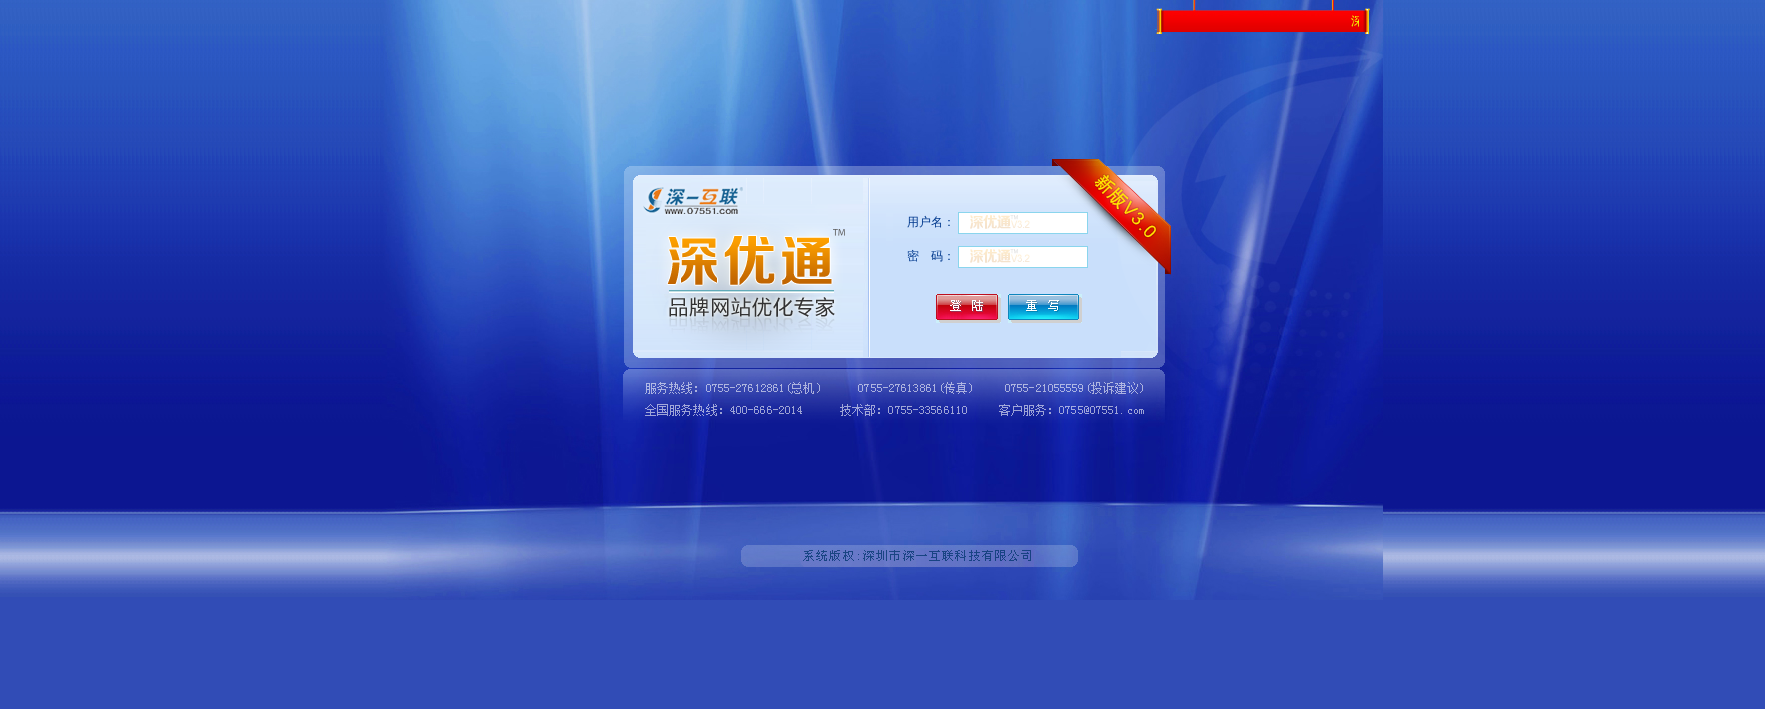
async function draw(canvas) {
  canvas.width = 1765
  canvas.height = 709
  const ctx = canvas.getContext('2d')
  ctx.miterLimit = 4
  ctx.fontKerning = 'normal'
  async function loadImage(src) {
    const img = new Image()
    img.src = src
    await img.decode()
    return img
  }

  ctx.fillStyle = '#314cb6'
  ctx.fillRect(0, 0, 1765, 709)
  ctx.drawImage(await loadImage('image0.png'), 0, 0, 1765, 597)
  ctx.drawImage(await loadImage('image1.png'), 382, 0, 240, 301)
  ctx.drawImage(await loadImage('image2.png'), 384, 301, 238, 299)
  ctx.drawImage(await loadImage('image3.png'), 1158, 0, 225, 369)
  ctx.save()
  ctx.beginPath()
  ctx.rect(1163, 12, 196, 18)
  ctx.clip()
  ctx.font = '500 12px WenQuanYi Zen Hei'
  ctx.fillStyle = '#f0ff00'
  ctx.fillText('深', 1351, 25)
  ctx.restore()
  ctx.drawImage(await loadImage('image4.png'), 1158, 369, 225, 231)
  ctx.drawImage(await loadImage('image5.png'), 622, 0, 536, 166)
  ctx.drawImage(await loadImage('image6.png'), 622, 166, 536, 202)
  ctx.font = '500 12px WenQuanYi Zen Hei'
  ctx.fillStyle = '#00398d'
  ctx.fillText('用户名：', 907, 226)
  ctx.fillStyle = '#fff'
  ctx.fillRect(959, 213, 128, 20)
  ctx.drawImage(await loadImage('image7.png'), 970, 215, 60, 14)
  ctx.strokeStyle = '#8ad5ed'
  ctx.strokeRect(958.5, 212.5, 129, 21)
  ctx.fillStyle = '#00398d'
  ctx.fillText('密　码：', 907, 260)
  ctx.fillStyle = '#fff'
  ctx.fillRect(959, 247, 128, 20)
  ctx.drawImage(await loadImage('image7.png'), 970, 249, 60, 14)
  ctx.strokeRect(958.5, 246.5, 129, 21)
  ctx.drawImage(await loadImage('image8.png'), 936, 294, 65, 29)
  ctx.drawImage(await loadImage('image9.png'), 1008, 294, 74, 29)
  ctx.drawImage(await loadImage('image10.png'), 622, 368, 536, 134)
  ctx.drawImage(await loadImage('image11.png'), 622, 502, 536, 98)
}

draw(document.querySelector('canvas'))
